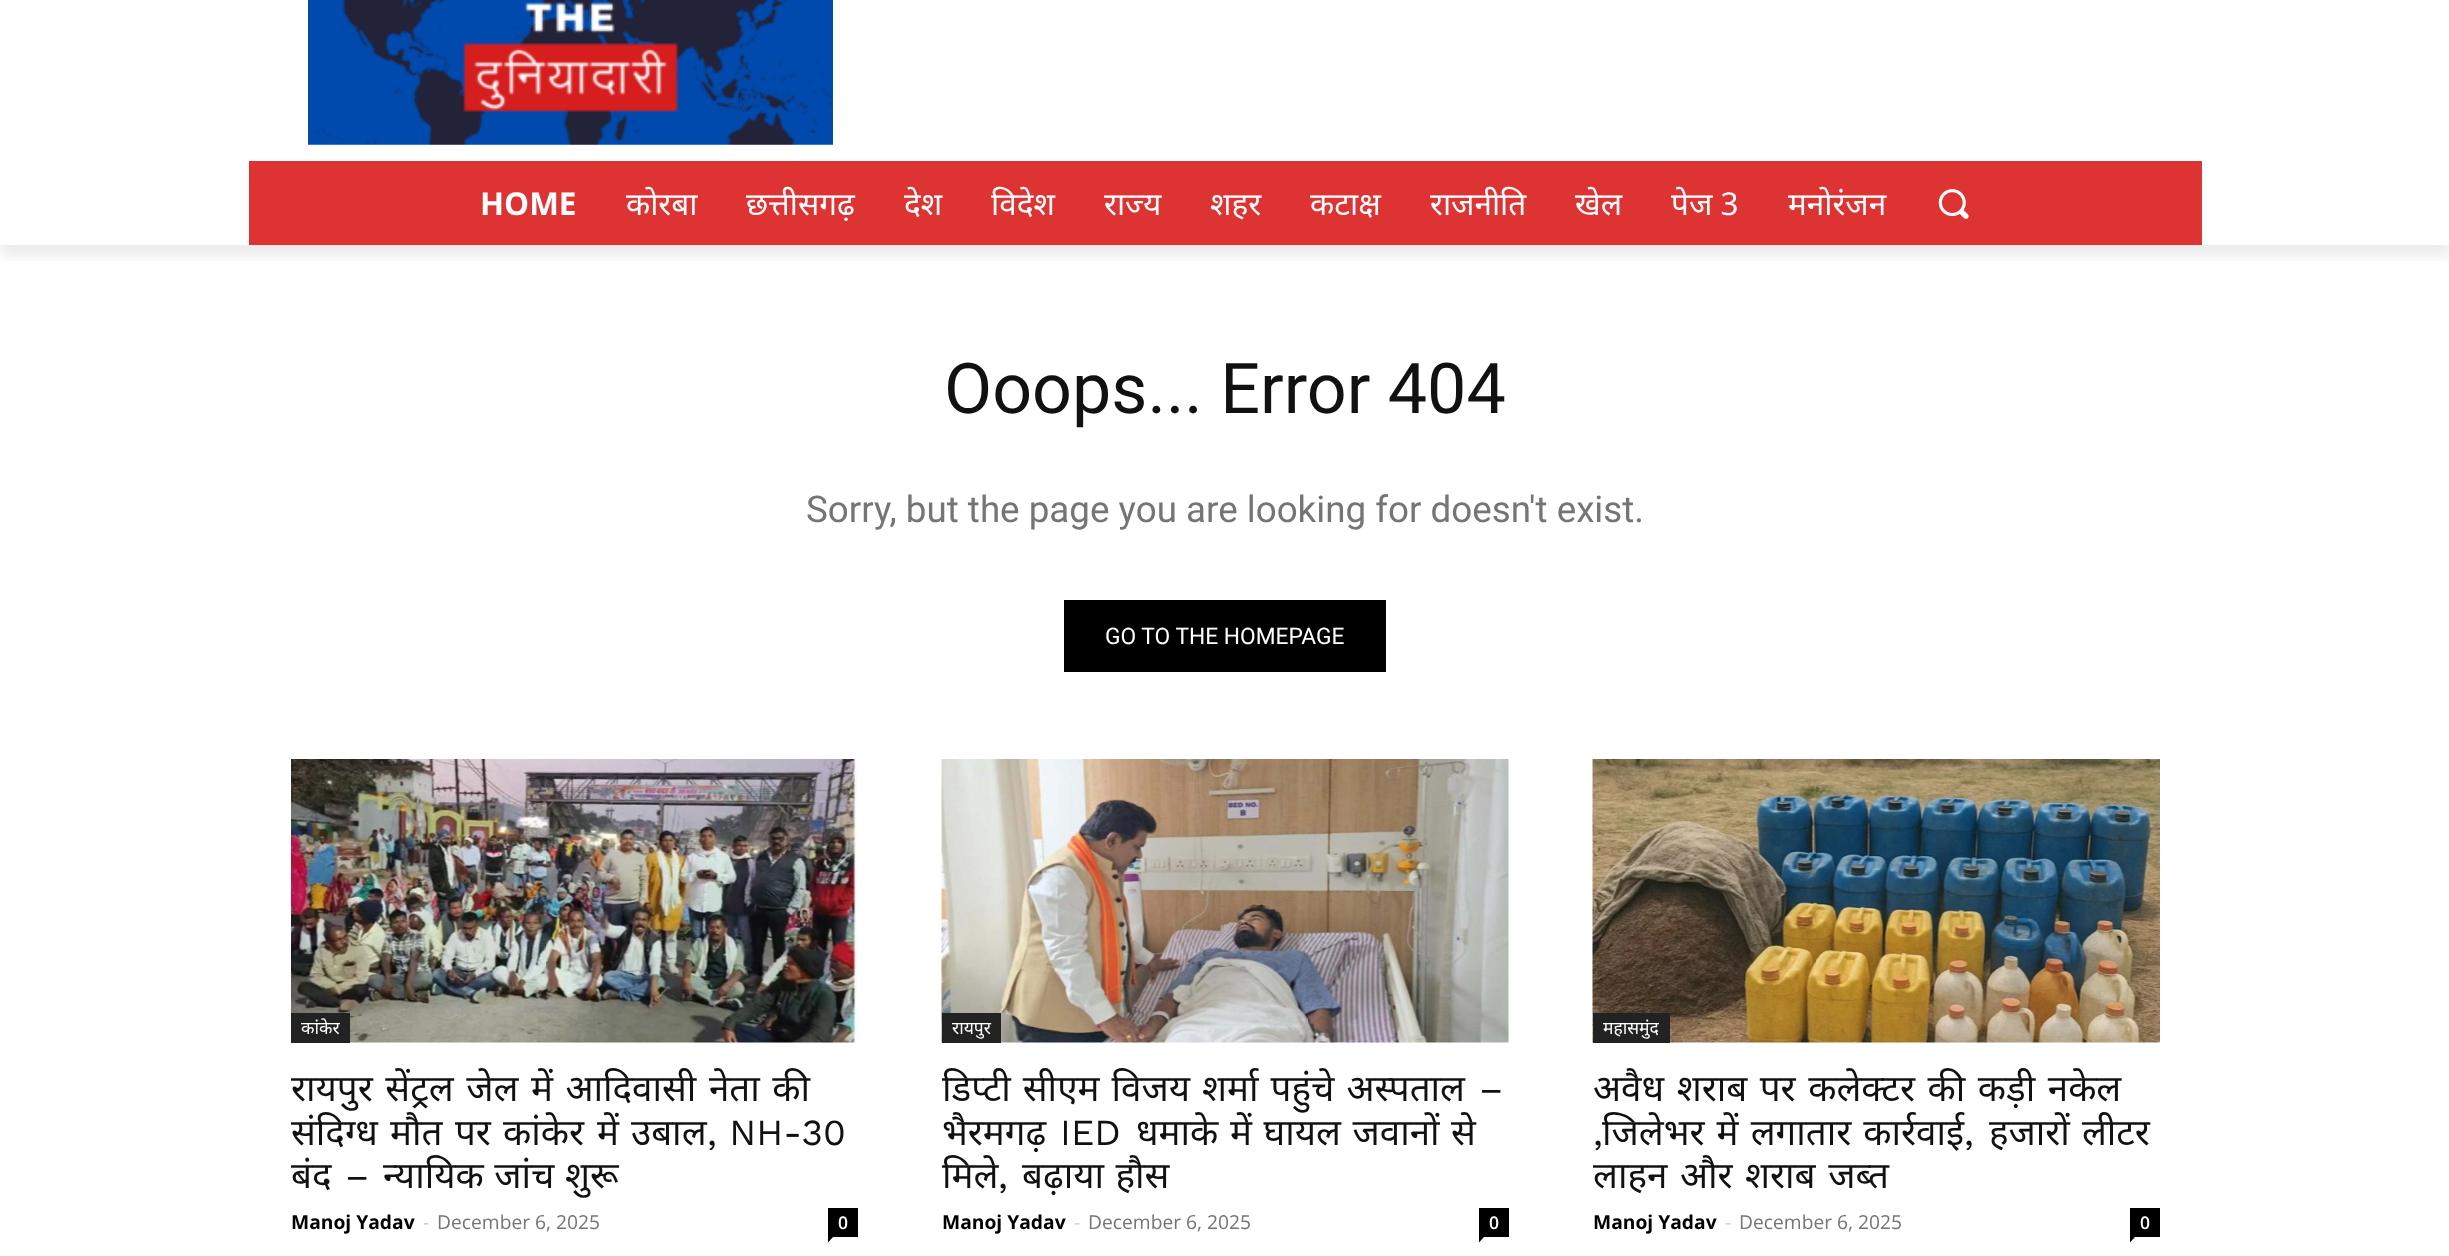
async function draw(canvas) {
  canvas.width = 2449
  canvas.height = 1256
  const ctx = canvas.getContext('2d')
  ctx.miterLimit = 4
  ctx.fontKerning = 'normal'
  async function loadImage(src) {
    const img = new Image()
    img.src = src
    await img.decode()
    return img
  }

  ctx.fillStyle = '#fff'
  ctx.fillRect(0, 0, 2449, 1256)
  ctx.drawImage(await loadImage('image0.png'), 308, 0, 525, 145)
  ctx.fillStyle = '#d33'
  ctx.fillRect(249, 161, 1953, 84)
  ctx.save()
  ctx.beginPath()
  ctx.rect(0, 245, 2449, 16)
  ctx.clip()
  ctx.fillStyle = '#00000014'
  ctx.filter = 'blur(7px)'
  ctx.beginPath()
  ctx.rect(0, -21, 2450, 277)
  ctx.fill()
  ctx.filter = 'none'
  ctx.restore()
  ctx.font = 'bold 31.5px Open Sans'
  ctx.fillStyle = '#fff'
  ctx.fillText('HOME', 480, 215)
  ctx.font = '31.5px Noto Sans'
  ctx.fillText('कोरबा', 626, 215)
  ctx.fillText('छत्तीसगढ़', 746, 215)
  ctx.fillText('देश', 904, 215)
  ctx.fillText('विदेश', 991, 215)
  ctx.fillText('राज्य', 1104, 215)
  ctx.fillText('शहर', 1210, 215)
  ctx.fillText('कटाक्ष', 1310, 215)
  ctx.fillText('राजनीति', 1430, 215)
  ctx.fillText('खेल', 1575, 215)
  ctx.fillText('पेज 3', 1671, 215)
  ctx.fillText('मनोरंजन', 1788, 215)
  ctx.drawImage(await loadImage('image1.png'), 1938, 189, 31, 30)
  ctx.font = '70px Roboto'
  ctx.fillStyle = '#111'
  ctx.fillText('Ooops... Error 404', 944, 413)
  ctx.font = '36.75px Roboto'
  ctx.fillStyle = '#757575'
  ctx.fillText('Sorry, but the page you are looking for doesn\'t exist.', 806, 522)
  ctx.fillStyle = '#000'
  ctx.fillRect(1064, 600, 322, 72)
  ctx.font = '22.75px Roboto'
  ctx.fillStyle = '#fff'
  ctx.fillText('GO TO THE HOMEPAGE', 1105, 644)
  ctx.drawImage(await loadImage('image2.png'), 291, 759, 567, 284)
  ctx.fillStyle = '#222'
  ctx.fillRect(291, 1013, 59, 30)
  ctx.font = '17.5px Noto Sans'
  ctx.fillStyle = '#fff'
  ctx.fillText('कांकेर', 301, 1034)
  ctx.wordSpacing = '3px'
  ctx.font = '36.75px Noto Sans'
  ctx.fillStyle = '#111'
  ctx.fillText('रायपुर सेंट्रल जेल में आदिवासी नेता की', 291, 1101)
  ctx.wordSpacing = '0px'
  ctx.fillText('संदिग्ध', 291, 1145)
  ctx.fillText('मौत', 390, 1145)
  ctx.fillText('पर', 455, 1145)
  ctx.fillText('कांकेर', 503, 1145)
  ctx.fillText('में', 597, 1145)
  ctx.fillText('उबाल', 631, 1145)
  ctx.font = '36.75px Work Sans'
  ctx.fillText(', NH-30', 707, 1145)
  ctx.font = '36.75px Noto Sans'
  ctx.fillText('बंद', 291, 1188)
  ctx.font = '36.75px Work Sans'
  ctx.fillText('–', 345, 1188)
  ctx.wordSpacing = '1px'
  ctx.font = '36.75px Noto Sans'
  ctx.fillText('न्यायिक जांच शुरू', 383, 1188)
  ctx.wordSpacing = '0px'
  ctx.font = 'bold 19.25px Open Sans'
  ctx.fillStyle = '#000'
  ctx.fillText('Manoj Yadav', 291, 1229)
  ctx.font = '19.25px Open Sans'
  ctx.fillStyle = '#ccc'
  ctx.fillText('-', 423, 1229)
  ctx.fillStyle = '#757575'
  ctx.fillText('December 6, 2025', 437, 1229)
  ctx.fillStyle = '#000'
  ctx.fillRect(828, 1208, 30, 29)
  ctx.font = '600 17.5px Open Sans'
  ctx.fillStyle = '#fff'
  ctx.fillText('0', 838, 1229)
  ctx.fillStyle = '#000'
  ctx.beginPath()
  ctx.moveTo(828, 1237)
  ctx.lineTo(833, 1237)
  ctx.lineTo(828, 1242.5)
  ctx.closePath()
  ctx.fill()
  ctx.drawImage(await loadImage('image3.png'), 941, 759, 568, 284)
  ctx.fillStyle = '#222'
  ctx.fillRect(942, 1013, 59, 30)
  ctx.font = '17.5px Noto Sans'
  ctx.fillStyle = '#fff'
  ctx.fillText('रायपुर', 952, 1034)
  ctx.wordSpacing = '2.5px'
  ctx.font = '36.75px Noto Sans'
  ctx.fillStyle = '#111'
  ctx.fillText('डिप्टी सीएम विजय शर्मा पहुंचे अस्पताल', 942, 1101)
  ctx.wordSpacing = '0px'
  ctx.font = '36.75px Work Sans'
  ctx.fillText('–', 1479, 1101)
  ctx.font = '36.75px Noto Sans'
  ctx.fillText('भैरमगढ़', 942, 1145)
  ctx.font = '36.75px Work Sans'
  ctx.fillText('IED', 1060, 1145)
  ctx.wordSpacing = '2px'
  ctx.font = '36.75px Noto Sans'
  ctx.fillText('धमाके में घायल जवानों से', 1136, 1145)
  ctx.wordSpacing = '0px'
  ctx.fillText('मिले', 942, 1188)
  ctx.font = '36.75px Work Sans'
  ctx.fillText(',', 998, 1188)
  ctx.wordSpacing = '2px'
  ctx.font = '36.75px Noto Sans'
  ctx.fillText('बढ़ाया हौस', 1022, 1188)
  ctx.wordSpacing = '0px'
  ctx.font = 'bold 19.25px Open Sans'
  ctx.fillStyle = '#000'
  ctx.fillText('Manoj Yadav', 942, 1229)
  ctx.font = '19.25px Open Sans'
  ctx.fillStyle = '#ccc'
  ctx.fillText('-', 1074, 1229)
  ctx.fillStyle = '#757575'
  ctx.fillText('December 6, 2025', 1088, 1229)
  ctx.fillStyle = '#000'
  ctx.fillRect(1479, 1208, 30, 29)
  ctx.font = '600 17.5px Open Sans'
  ctx.fillStyle = '#fff'
  ctx.fillText('0', 1489, 1229)
  ctx.fillStyle = '#000'
  ctx.beginPath()
  ctx.moveTo(1479, 1237)
  ctx.lineTo(1484, 1237)
  ctx.lineTo(1479, 1242.5)
  ctx.closePath()
  ctx.fill()
  ctx.drawImage(await loadImage('image4.png'), 1592, 759, 568, 284)
  ctx.fillStyle = '#222'
  ctx.fillRect(1593, 1013, 77, 30)
  ctx.font = '17.5px Noto Sans'
  ctx.fillStyle = '#fff'
  ctx.fillText('महासमुंद', 1603, 1034)
  ctx.wordSpacing = '3px'
  ctx.font = '36.75px Noto Sans'
  ctx.fillStyle = '#111'
  ctx.fillText('अवैध शराब पर कलेक्टर की कड़ी नकेल', 1593, 1101)
  ctx.wordSpacing = '0px'
  ctx.font = '36.75px Work Sans'
  ctx.fillText(',', 1593, 1145)
  ctx.wordSpacing = '2.5px'
  ctx.font = '36.75px Noto Sans'
  ctx.fillText('जिलेभर में लगातार कार्रवाई', 1602, 1145)
  ctx.wordSpacing = '0px'
  ctx.font = '36.75px Work Sans'
  ctx.fillText(',', 1964, 1145)
  ctx.wordSpacing = '2.5px'
  ctx.font = '36.75px Noto Sans'
  ctx.fillText('हजारों लीटर', 1989, 1145)
  ctx.wordSpacing = '3px'
  ctx.fillText('लाहन और शराब जब्त', 1593, 1188)
  ctx.wordSpacing = '0px'
  ctx.font = 'bold 19.25px Open Sans'
  ctx.fillStyle = '#000'
  ctx.fillText('Manoj Yadav', 1593, 1229)
  ctx.font = '19.25px Open Sans'
  ctx.fillStyle = '#ccc'
  ctx.fillText('-', 1725, 1229)
  ctx.fillStyle = '#757575'
  ctx.fillText('December 6, 2025', 1739, 1229)
  ctx.fillStyle = '#000'
  ctx.fillRect(2130, 1208, 30, 29)
  ctx.font = '600 17.5px Open Sans'
  ctx.fillStyle = '#fff'
  ctx.fillText('0', 2140, 1229)
  ctx.fillStyle = '#000'
  ctx.beginPath()
  ctx.moveTo(2130, 1237)
  ctx.lineTo(2135, 1237)
  ctx.lineTo(2130, 1242.5)
  ctx.closePath()
  ctx.fill()
}

draw(document.querySelector('canvas'))
